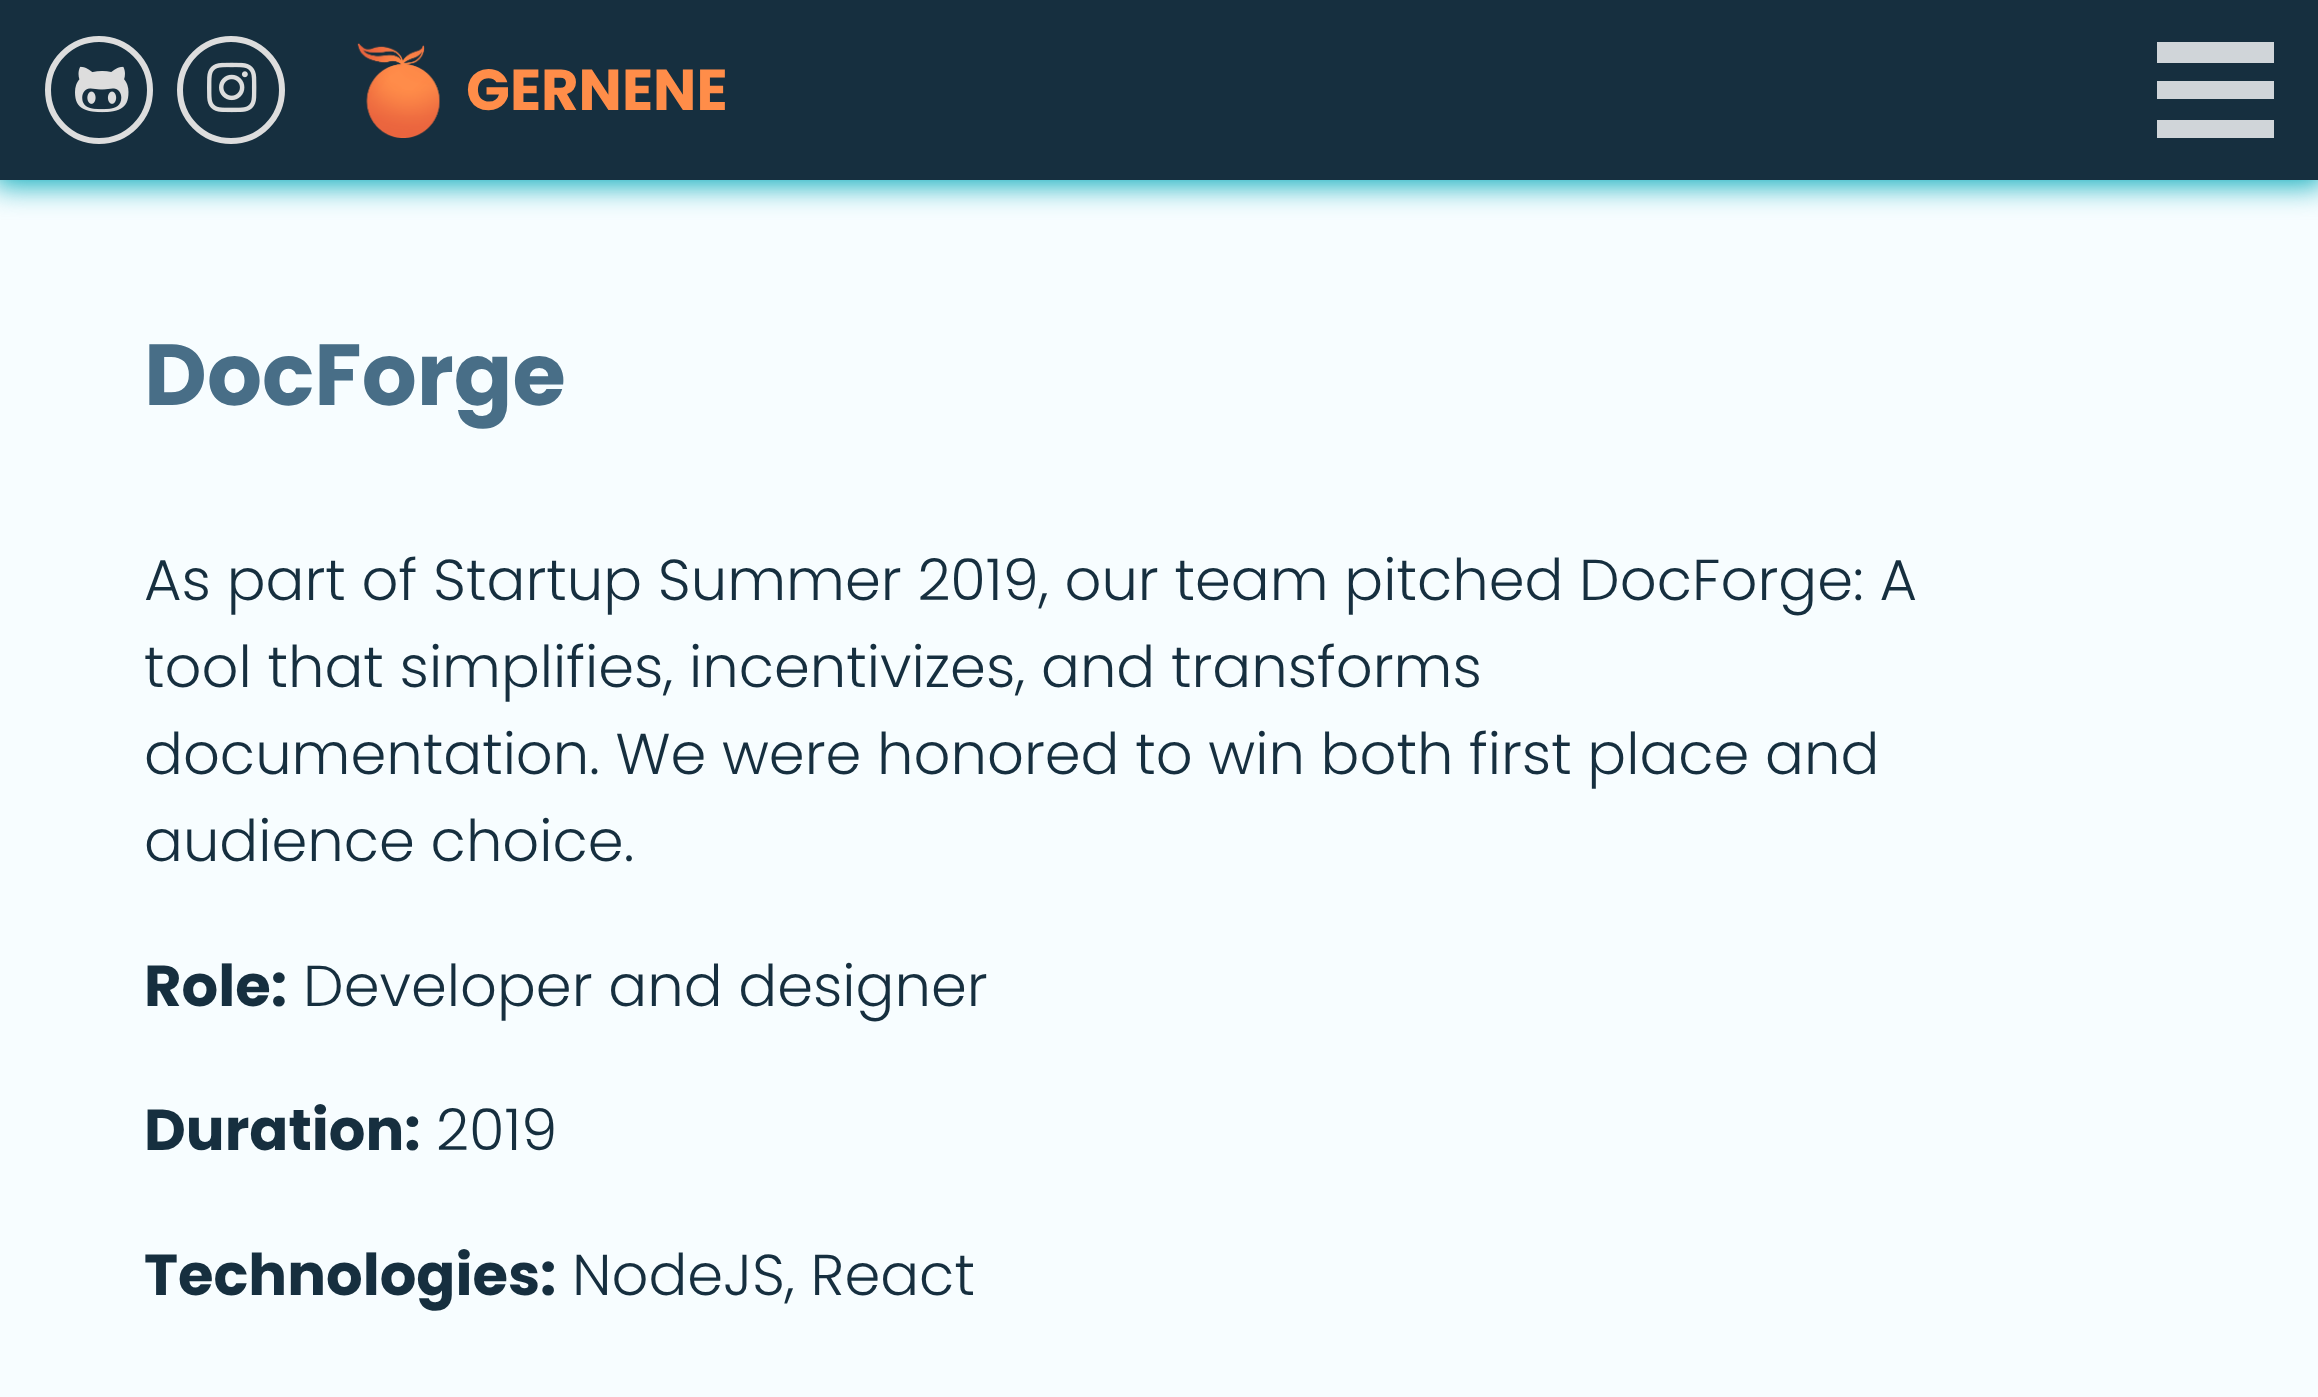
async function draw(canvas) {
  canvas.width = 2318
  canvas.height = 1397
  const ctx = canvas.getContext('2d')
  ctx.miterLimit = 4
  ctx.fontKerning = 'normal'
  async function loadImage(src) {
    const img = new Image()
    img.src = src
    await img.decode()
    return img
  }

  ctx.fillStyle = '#f7fdff'
  ctx.fillRect(0, 0, 2318, 1397)
  ctx.fillStyle = '#10aebd'
  ctx.filter = 'blur(14.5px)'
  ctx.beginPath()
  ctx.rect(-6, -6, 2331, 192)
  ctx.fill()
  ctx.filter = 'none'
  ctx.fillStyle = '#162f3f'
  ctx.fillRect(0, 0, 2318, 180)
  ctx.beginPath()
  ctx.arc(99, 90, 51, 0, 2 * Math.PI)
  ctx.strokeStyle = '#ddd'
  ctx.lineWidth = 6
  ctx.stroke()
  ctx.drawImage(await loadImage('image0.png'), 75, 66, 54, 47)
  ctx.beginPath()
  ctx.arc(231, 90, 51, 0, 2 * Math.PI)
  ctx.stroke()
  ctx.drawImage(await loadImage('image1.png'), 207, 62, 50, 51)
  ctx.drawImage(await loadImage('image2.png'), 357, 43, 83, 95)
  ctx.font = 'bold 57.6px Poppins'
  ctx.fillStyle = '#ff8d49'
  ctx.fillText('GERNENE', 466, 110)
  ctx.fillStyle = '#d0d5d9'
  ctx.fillRect(2157, 42, 117, 21)
  ctx.fillRect(2157, 81, 117, 18)
  ctx.fillRect(2157, 120, 117, 18)
  ctx.font = 'bold 86.5px Poppins'
  ctx.fillStyle = '#486e87'
  ctx.fillText('DocForge', 144, 405)
  ctx.font = '300 57.6px Poppins'
  ctx.fillStyle = '#162f3f'
  ctx.fillText('As part of Startup Summer 2019, our team pitched DocForge: A', 144, 600)
  ctx.fillText('tool that simplifies, incentivizes, and transforms', 144, 687)
  ctx.wordSpacing = '-0.1px'
  ctx.fillText('documentation. We were honored to win both first place and', 144, 774)
  ctx.wordSpacing = '0px'
  ctx.fillText('audience choice.', 144, 861)
  ctx.font = 'bold 57.6px Poppins'
  ctx.fillText('Role:', 144, 1006)
  ctx.font = '300 57.6px Poppins'
  ctx.fillText('Developer and designer', 303, 1006)
  ctx.font = 'bold 57.6px Poppins'
  ctx.fillText('Duration:', 144, 1150)
  ctx.font = '300 57.6px Poppins'
  ctx.fillText('2019', 436, 1150)
  ctx.font = 'bold 57.6px Poppins'
  ctx.fillText('Technologies:', 144, 1295)
  ctx.font = '300 57.6px Poppins'
  ctx.fillText('NodeJS, React', 572, 1295)
}

draw(document.querySelector('canvas'))
